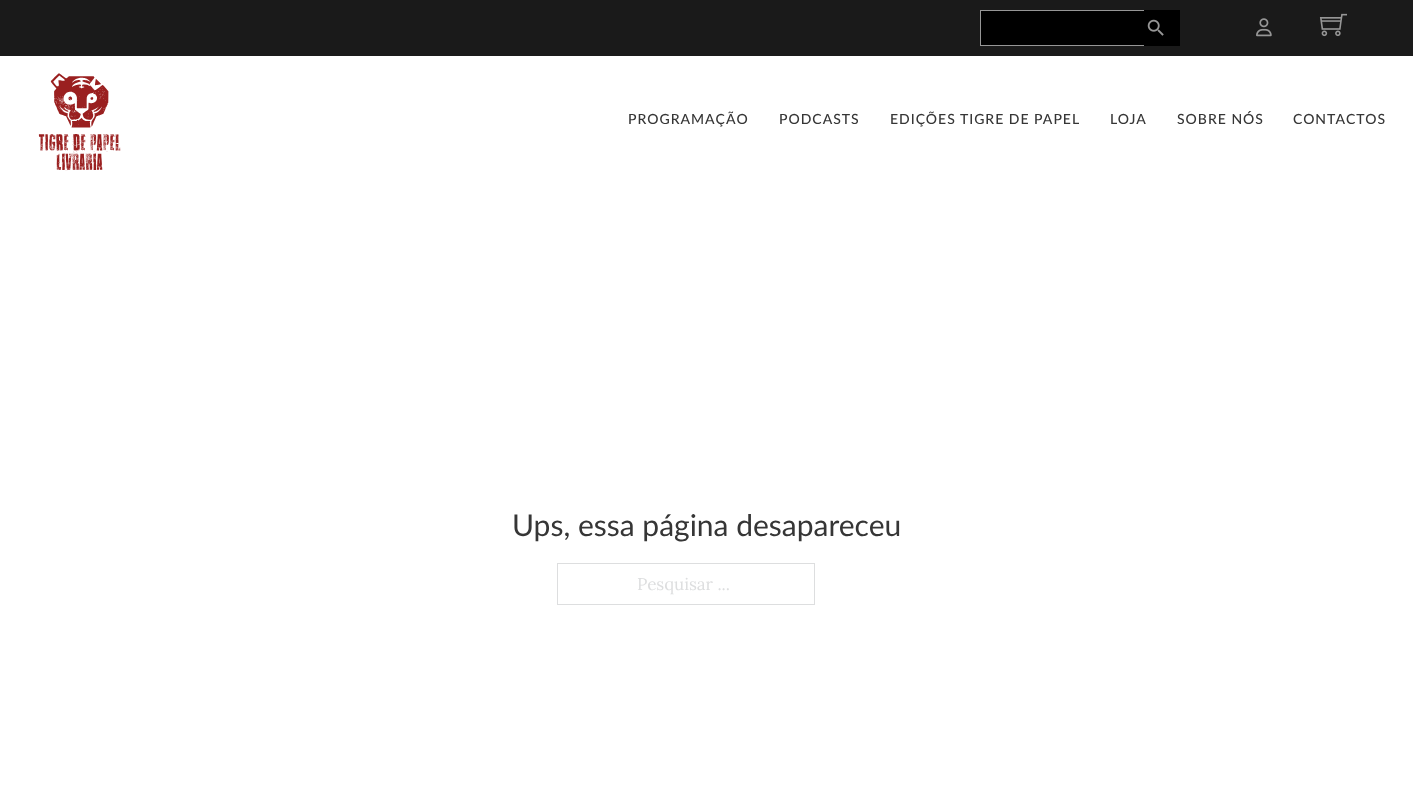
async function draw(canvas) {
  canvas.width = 1413
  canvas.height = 799
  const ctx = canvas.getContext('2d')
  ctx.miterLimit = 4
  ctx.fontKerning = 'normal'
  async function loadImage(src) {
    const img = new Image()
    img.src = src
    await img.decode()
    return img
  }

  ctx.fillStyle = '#fff'
  ctx.fillRect(0, 0, 1413, 799)
  ctx.fillStyle = '#1a1a1a'
  ctx.fillRect(0, 0, 1413, 56)
  ctx.fillStyle = '#000'
  ctx.fillRect(981, 11, 163, 34)
  ctx.fillStyle = '#969696'
  ctx.fillRect(980, 10, 164, 1)
  ctx.fillRect(980, 45, 164, 1)
  ctx.fillRect(980, 10, 1, 36)
  ctx.fillStyle = '#000'
  ctx.fillRect(1144, 10, 36, 36)
  ctx.drawImage(await loadImage('image0.png'), 1147, 19, 17, 17)
  ctx.drawImage(await loadImage('image1.png'), 1256, 18, 16, 19)
  ctx.drawImage(await loadImage('image2.png'), 1319, 13, 28, 24)
  ctx.drawImage(await loadImage('image3.png'), 38, 73, 83, 98)
  ctx.letterSpacing = '1px'
  ctx.font = '500 14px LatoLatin'
  ctx.fillStyle = '#363636'
  ctx.fillText('PROGRAMAÇÃO', 628, 124)
  ctx.fillText('PODCASTS', 779, 124)
  ctx.fillText('EDIÇÕES TIGRE DE PAPEL', 890, 124)
  ctx.fillText('LOJA', 1110, 124)
  ctx.fillText('SOBRE NÓS', 1177, 124)
  ctx.fillText('CONTACTOS', 1293, 124)
  ctx.letterSpacing = '0px'
  ctx.font = '30px LatoLatin'
  ctx.fillText('Ups, essa página desapareceu', 512, 536)
  ctx.strokeStyle = '#dddedf'
  ctx.strokeRect(557.5, 563.5, 257, 41)
  ctx.font = '17px Lora'
  ctx.fillStyle = '#dddedf'
  ctx.fillText('Pesquisar ...', 637, 590)
}

draw(document.querySelector('canvas'))
